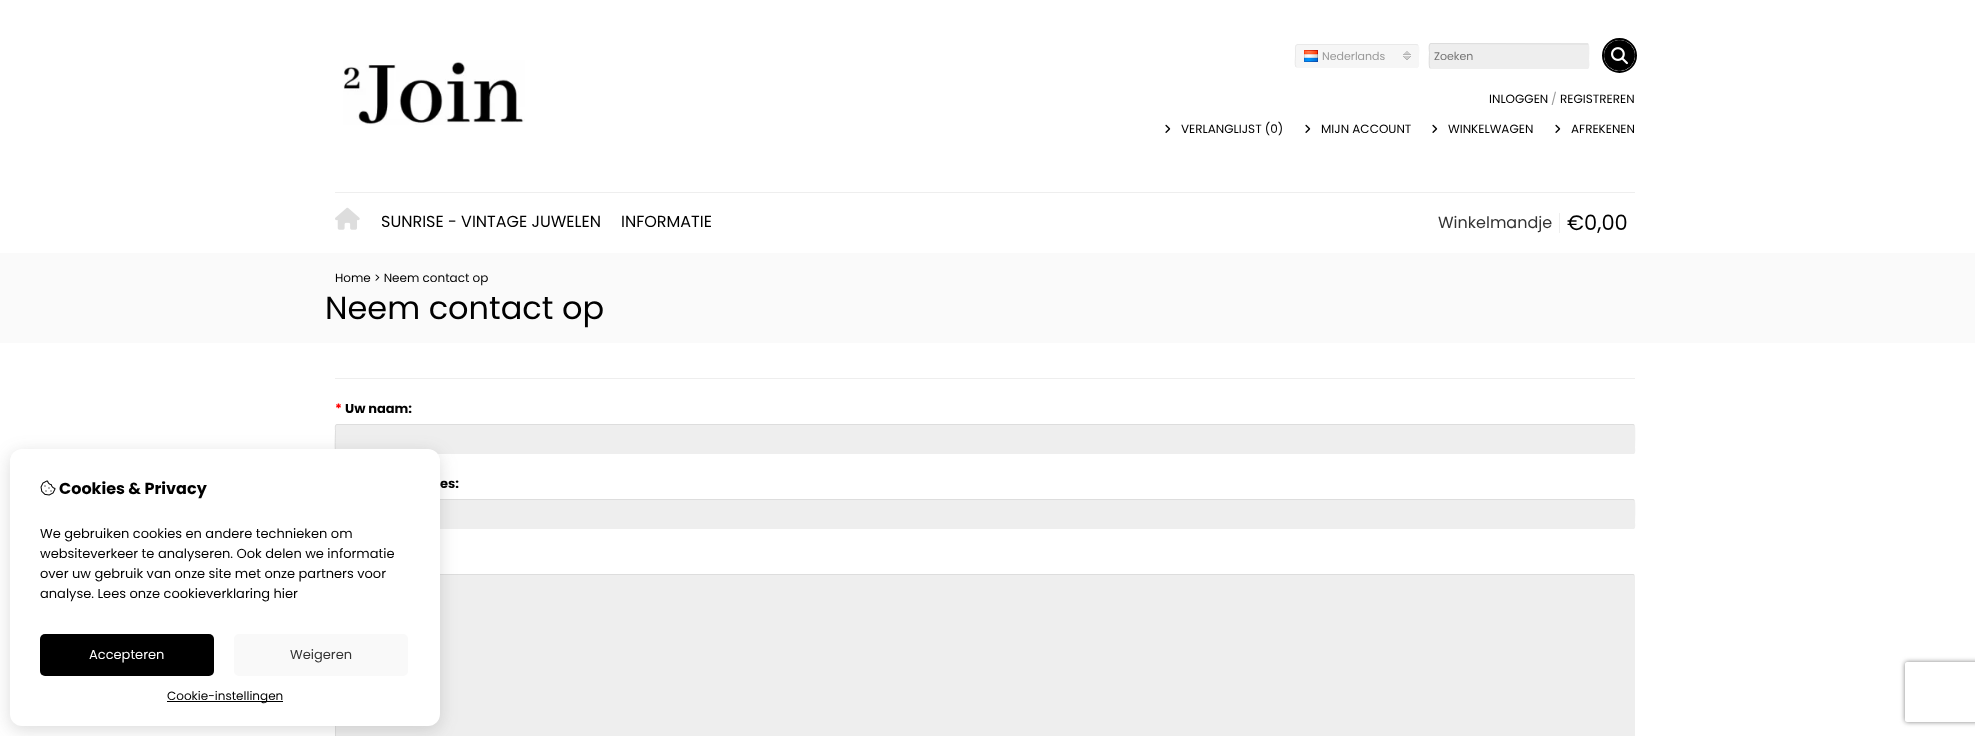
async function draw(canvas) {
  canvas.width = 1975
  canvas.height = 736
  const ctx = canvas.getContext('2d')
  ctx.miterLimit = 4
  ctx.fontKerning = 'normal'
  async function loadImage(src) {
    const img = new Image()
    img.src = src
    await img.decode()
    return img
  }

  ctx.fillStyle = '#fff'
  ctx.fillRect(0, 0, 1975, 736)
  ctx.fillStyle = '#f6f6f6'
  ctx.beginPath()
  ctx.roundRect(1295, 44, 124, 24, 3)
  ctx.fill()
  ctx.drawImage(await loadImage('image0.png'), 1403, 51, 8, 9)
  ctx.beginPath()
  ctx.moveTo(1418, 45)
  ctx.bezierCurveTo(1419.5, 47, 1418.5, 54, 1418.5, 56)
  ctx.lineTo(1418.5, 62)
  ctx.bezierCurveTo(1418.5, 64, 1419, 67.5, 1416, 67.5)
  ctx.lineTo(1298, 67.5)
  ctx.lineTo(1296, 67)
  ctx.strokeStyle = '#f6f6f6'
  ctx.stroke()
  ctx.beginPath()
  ctx.moveTo(1296, 67)
  ctx.bezierCurveTo(1294.5, 65, 1295.5, 58, 1295.5, 56)
  ctx.lineTo(1295.5, 50)
  ctx.bezierCurveTo(1295.5, 48, 1295, 44.5, 1298, 44.5)
  ctx.lineTo(1416, 44.5)
  ctx.lineTo(1418, 45)
  ctx.strokeStyle = '#e9e9e9'
  ctx.stroke()
  ctx.drawImage(await loadImage('image1.png'), 1304, 50, 14, 12)
  ctx.font = '11px Poppins'
  ctx.fillStyle = '#999'
  ctx.fillText('Nederlands', 1322, 60)
  ctx.fillStyle = '#eee'
  ctx.beginPath()
  ctx.roundRect(1429, 43, 160, 26, 2)
  ctx.fill()
  ctx.beginPath()
  ctx.moveTo(1588, 44)
  ctx.bezierCurveTo(1589.5, 45, 1588.5, 57.5, 1588.5, 59.5)
  ctx.bezierCurveTo(1588.5, 60.5, 1590, 68.5, 1587, 68.5)
  ctx.lineTo(1430, 68)
  ctx.strokeStyle = '#eee'
  ctx.stroke()
  ctx.beginPath()
  ctx.moveTo(1430, 68)
  ctx.bezierCurveTo(1428.5, 67, 1429.5, 54.5, 1429.5, 52.5)
  ctx.bezierCurveTo(1429.5, 51.5, 1428, 43.5, 1431, 43.5)
  ctx.lineTo(1588, 44)
  ctx.strokeStyle = '#ddd'
  ctx.stroke()
  ctx.fillStyle = '#757575'
  ctx.fillText('Zoeken', 1434, 60)
  ctx.beginPath()
  ctx.arc(1619.5, 55.5, 16.5, 0, 2 * Math.PI)
  ctx.strokeStyle = '#000'
  ctx.lineWidth = 2
  ctx.stroke()
  ctx.fillStyle = '#000'
  ctx.beginPath()
  ctx.arc(1619.5, 55.5, 15, 0, 2 * Math.PI)
  ctx.fill()
  ctx.lineWidth = 1
  ctx.stroke()
  ctx.drawImage(await loadImage('image2.png'), 1611, 47, 17, 18)
  ctx.drawImage(await loadImage('image3.png'), 343, 60, 182, 65)
  ctx.font = '12px Poppins'
  ctx.fillText('INLOGGEN', 1489, 103)
  ctx.fillStyle = '#999'
  ctx.fillText('/', 1551, 103)
  ctx.fillStyle = '#000'
  ctx.fillText('REGISTREREN', 1560, 103)
  ctx.drawImage(await loadImage('image4.png'), 1165, 124, 6, 9)
  ctx.fillText('VERLANGLIJST (0)', 1181, 133)
  ctx.drawImage(await loadImage('image4.png'), 1305, 124, 6, 9)
  ctx.fillText('MIJN ACCOUNT', 1321, 133)
  ctx.drawImage(await loadImage('image4.png'), 1432, 124, 6, 9)
  ctx.fillText('WINKELWAGEN', 1448, 133)
  ctx.drawImage(await loadImage('image4.png'), 1555, 124, 6, 9)
  ctx.fillText('AFREKENEN', 1571, 133)
  ctx.fillStyle = '#eee'
  ctx.fillRect(335, 192, 1300, 1)
  ctx.drawImage(await loadImage('image5.png'), 335, 207, 25, 23)
  ctx.font = '16px Poppins'
  ctx.fillStyle = '#000'
  ctx.fillText('SUNRISE - VINTAGE JUWELEN', 381, 227)
  ctx.fillText('INFORMATIE', 621, 227)
  ctx.fillStyle = '#eee'
  ctx.fillRect(1559, 213, 1, 20)
  ctx.fillStyle = '#333'
  ctx.fillText('Winkelmandje', 1438, 228)
  ctx.font = '21px Poppins'
  ctx.fillStyle = '#000'
  ctx.fillText('€0,00', 1567, 230)
  ctx.fillStyle = '#fafafa'
  ctx.fillRect(0, 253, 1975, 90)
  ctx.font = '12px Poppins'
  ctx.fillStyle = '#000'
  ctx.fillText('Home > Neem contact op', 335, 282)
  ctx.font = '32px Poppins'
  ctx.fillText('Neem contact op', 325, 319)
  ctx.fillStyle = '#eee'
  ctx.fillRect(335, 378, 1300, 1)
  ctx.font = 'bold 13px Poppins'
  ctx.fillStyle = '#f00'
  ctx.fillText('*', 335, 413)
  ctx.fillStyle = '#000'
  ctx.fillText('Uw naam:', 345, 413)
  ctx.fillStyle = '#eee'
  ctx.beginPath()
  ctx.roundRect(335, 424, 1300, 30, 2)
  ctx.fill()
  ctx.beginPath()
  ctx.moveTo(1634, 425)
  ctx.bezierCurveTo(1635.5, 426, 1634.5, 444.5, 1634.5, 447.5)
  ctx.bezierCurveTo(1634.5, 448, 1635.5, 453.5, 1633, 453.5)
  ctx.lineTo(337, 453.5)
  ctx.lineTo(336, 453)
  ctx.strokeStyle = '#eee'
  ctx.stroke()
  ctx.beginPath()
  ctx.moveTo(336, 453)
  ctx.bezierCurveTo(334.5, 452, 335.5, 433.5, 335.5, 430.5)
  ctx.bezierCurveTo(335.5, 430, 334.5, 424.5, 337, 424.5)
  ctx.lineTo(1633, 424.5)
  ctx.lineTo(1634, 425)
  ctx.strokeStyle = '#ddd'
  ctx.stroke()
  ctx.fillStyle = '#000'
  ctx.fillText('es:', 440, 488)
  ctx.fillStyle = '#eee'
  ctx.beginPath()
  ctx.roundRect(335, 499, 1300, 30, 2)
  ctx.fill()
  ctx.beginPath()
  ctx.moveTo(1634, 500)
  ctx.bezierCurveTo(1635.5, 501, 1634.5, 519.5, 1634.5, 522.5)
  ctx.bezierCurveTo(1634.5, 523, 1635.5, 528.5, 1633, 528.5)
  ctx.lineTo(337, 528.5)
  ctx.lineTo(336, 528)
  ctx.strokeStyle = '#eee'
  ctx.stroke()
  ctx.beginPath()
  ctx.moveTo(336, 528)
  ctx.bezierCurveTo(334.5, 527, 335.5, 508.5, 335.5, 505.5)
  ctx.bezierCurveTo(335.5, 505, 334.5, 499.5, 337, 499.5)
  ctx.lineTo(1633, 499.5)
  ctx.lineTo(1634, 500)
  ctx.strokeStyle = '#ddd'
  ctx.stroke()
  ctx.beginPath()
  ctx.roundRect(335, 574, 1300, 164, 2)
  ctx.fill()
  ctx.beginPath()
  ctx.moveTo(336, 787)
  ctx.lineTo(335.5, 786)
  ctx.lineTo(335.5, 576)
  ctx.lineTo(336, 575)
  ctx.lineTo(337, 574.5)
  ctx.lineTo(1633, 574.5)
  ctx.lineTo(1634, 575)
  ctx.stroke()
  ctx.fillStyle = '#4c4c4c33'
  ctx.filter = 'blur(8.5px)'
  ctx.beginPath()
  ctx.roundRect(10, 453, 430, 277, 12)
  ctx.fill()
  ctx.filter = 'none'
  ctx.fillStyle = '#fff'
  ctx.beginPath()
  ctx.roundRect(10, 449, 430, 277, 12)
  ctx.fill()
  ctx.drawImage(await loadImage('image6.png'), 40, 480, 16, 16)
  ctx.font = 'bold 16px Poppins'
  ctx.fillStyle = '#000'
  ctx.fillText('Cookies & Privacy', 59, 494)
  ctx.font = '13px Poppins'
  ctx.fillText('We gebruiken cookies en andere technieken om', 40, 538)
  ctx.fillText('websiteverkeer te analyseren. Ook delen we informatie', 40, 558)
  ctx.fillText('over uw gebruik van onze site met onze partners voor', 40, 578)
  ctx.fillText('analyse. Lees onze cookieverklaring hier', 40, 598)
  ctx.beginPath()
  ctx.roundRect(40, 634, 174, 42, 5)
  ctx.fill()
  ctx.fillStyle = '#fff'
  ctx.fillText('Accepteren', 89, 659)
  ctx.fillStyle = '#f9f9f9'
  ctx.beginPath()
  ctx.roundRect(234, 634, 174, 42, 5)
  ctx.fill()
  ctx.fillStyle = '#333'
  ctx.fillText('Weigeren', 290, 659)
  ctx.fillStyle = '#000'
  ctx.fillRect(167, 701, 116, 1)
  ctx.font = '12px Poppins'
  ctx.fillText('Cookie-instellingen', 167, 700)
  ctx.save()
  ctx.beginPath()
  ctx.moveTo(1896, 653)
  ctx.lineTo(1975, 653)
  ctx.lineTo(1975, 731)
  ctx.lineTo(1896, 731)
  ctx.closePath()
  ctx.moveTo(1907, 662)
  ctx.lineTo(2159, 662)
  ctx.bezierCurveTo(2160, 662, 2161, 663, 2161, 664)
  ctx.lineTo(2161, 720)
  ctx.bezierCurveTo(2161, 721, 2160, 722, 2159, 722)
  ctx.lineTo(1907, 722)
  ctx.bezierCurveTo(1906, 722, 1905, 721, 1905, 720)
  ctx.lineTo(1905, 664)
  ctx.bezierCurveTo(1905, 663, 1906, 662, 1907, 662)
  ctx.closePath()
  ctx.clip('evenodd')
  ctx.fillStyle = '#808080'
  ctx.filter = 'blur(2.5px)'
  ctx.beginPath()
  ctx.roundRect(1905, 662, 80, 60, 2)
  ctx.fill()
  ctx.filter = 'none'
  ctx.restore()
}

draw(document.querySelector('canvas'))
